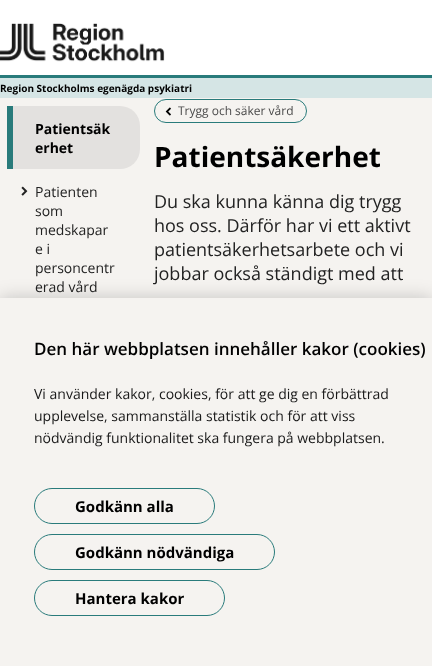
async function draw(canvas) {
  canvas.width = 432
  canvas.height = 666
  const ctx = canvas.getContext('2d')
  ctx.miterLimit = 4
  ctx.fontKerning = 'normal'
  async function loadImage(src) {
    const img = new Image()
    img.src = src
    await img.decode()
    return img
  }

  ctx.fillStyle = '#f5f3f0'
  ctx.fillRect(0, 0, 432, 666)
  ctx.fillStyle = '#fff'
  ctx.fillRect(0, 0, 432, 75)
  ctx.fillStyle = '#297b7b'
  ctx.fillRect(0, 75, 432, 3)
  ctx.drawImage(await loadImage('image0.png'), 0, 23, 165, 39)
  ctx.fillStyle = '#d5e5e5'
  ctx.fillRect(0, 78, 432, 20)
  ctx.font = 'bold 10px Open Sans'
  ctx.fillStyle = '#000'
  ctx.fillText('Region Stockholms egenägda psykiatri', 0, 92)
  ctx.fillStyle = '#e3e1df'
  ctx.beginPath()
  ctx.roundRect(7, 106, 133, 63, [0, 20, 20, 0])
  ctx.fill()
  ctx.fillStyle = '#297b7b'
  ctx.fillRect(7, 106, 6, 63)
  ctx.font = 'bold 14px Open Sans'
  ctx.fillStyle = '#000'
  ctx.fillText('Patientsäk', 35, 134)
  ctx.fillText('erhet', 35, 153)
  ctx.drawImage(await loadImage('image1.png'), 21, 186, 7, 10)
  ctx.font = '14px Open Sans'
  ctx.fillStyle = '#222'
  ctx.fillText('Patienten', 35, 197)
  ctx.fillText('som', 35, 216)
  ctx.fillText('medskapar', 35, 235)
  ctx.fillText('e i', 35, 254)
  ctx.fillText('personcentr', 35, 273)
  ctx.fillText('erad vård', 35, 292)
  ctx.beginPath()
  ctx.roundRect(154.5, 99.5, 152, 23, 11.5)
  ctx.strokeStyle = '#297b7b'
  ctx.stroke()
  ctx.drawImage(await loadImage('image2.png'), 165, 107, 6, 9)
  ctx.font = '12px Open Sans'
  ctx.fillStyle = '#4a4a4a'
  ctx.fillText('Trygg och säker vård', 178, 115)
  ctx.font = 'bold 28px Open Sans'
  ctx.fillStyle = '#000'
  ctx.fillText('Patientsäkerhet', 154, 167)
  ctx.font = '18px Open Sans'
  ctx.fillStyle = '#222'
  ctx.fillText('Du ska kunna känna dig trygg', 154, 208)
  ctx.fillText('hos oss. Därför har vi ett aktivt', 154, 232)
  ctx.fillText('patientsäkerhetsarbete och vi', 154, 256)
  ctx.fillText('jobbar också ständigt med att', 154, 280)
  ctx.fillStyle = '#00000033'
  ctx.filter = 'blur(9px)'
  ctx.beginPath()
  ctx.rect(0, 298, 432, 368)
  ctx.fill()
  ctx.filter = 'none'
  ctx.fillStyle = '#f5f3f0'
  ctx.fillRect(0, 298, 432, 368)
  ctx.font = '600 17px Open Sans'
  ctx.fillStyle = '#000'
  ctx.fillText('Den här webbplatsen innehåller kakor (cookies)', 34, 355)
  ctx.font = '14px Open Sans'
  ctx.fillStyle = '#181818'
  ctx.fillText('Vi använder kakor, cookies, för att ge dig en förbättrad', 34, 399)
  ctx.fillText('upplevelse, sammanställa statistik och för att viss', 34, 421)
  ctx.fillText('nödvändig funktionalitet ska fungera på webbplatsen.', 34, 443)
  ctx.beginPath()
  ctx.roundRect(34.5, 488.5, 180, 35, 17.5)
  ctx.stroke()
  ctx.font = 'bold 15px Open Sans'
  ctx.fillStyle = '#000'
  ctx.fillText('Godkänn alla', 75, 512)
  ctx.beginPath()
  ctx.roundRect(34.5, 534.5, 240, 35, 17.5)
  ctx.stroke()
  ctx.fillText('Godkänn nödvändiga', 75, 558)
  ctx.beginPath()
  ctx.roundRect(34.5, 580.5, 190, 35, 17.5)
  ctx.stroke()
  ctx.fillText('Hantera kakor', 75, 604)
}

draw(document.querySelector('canvas'))
